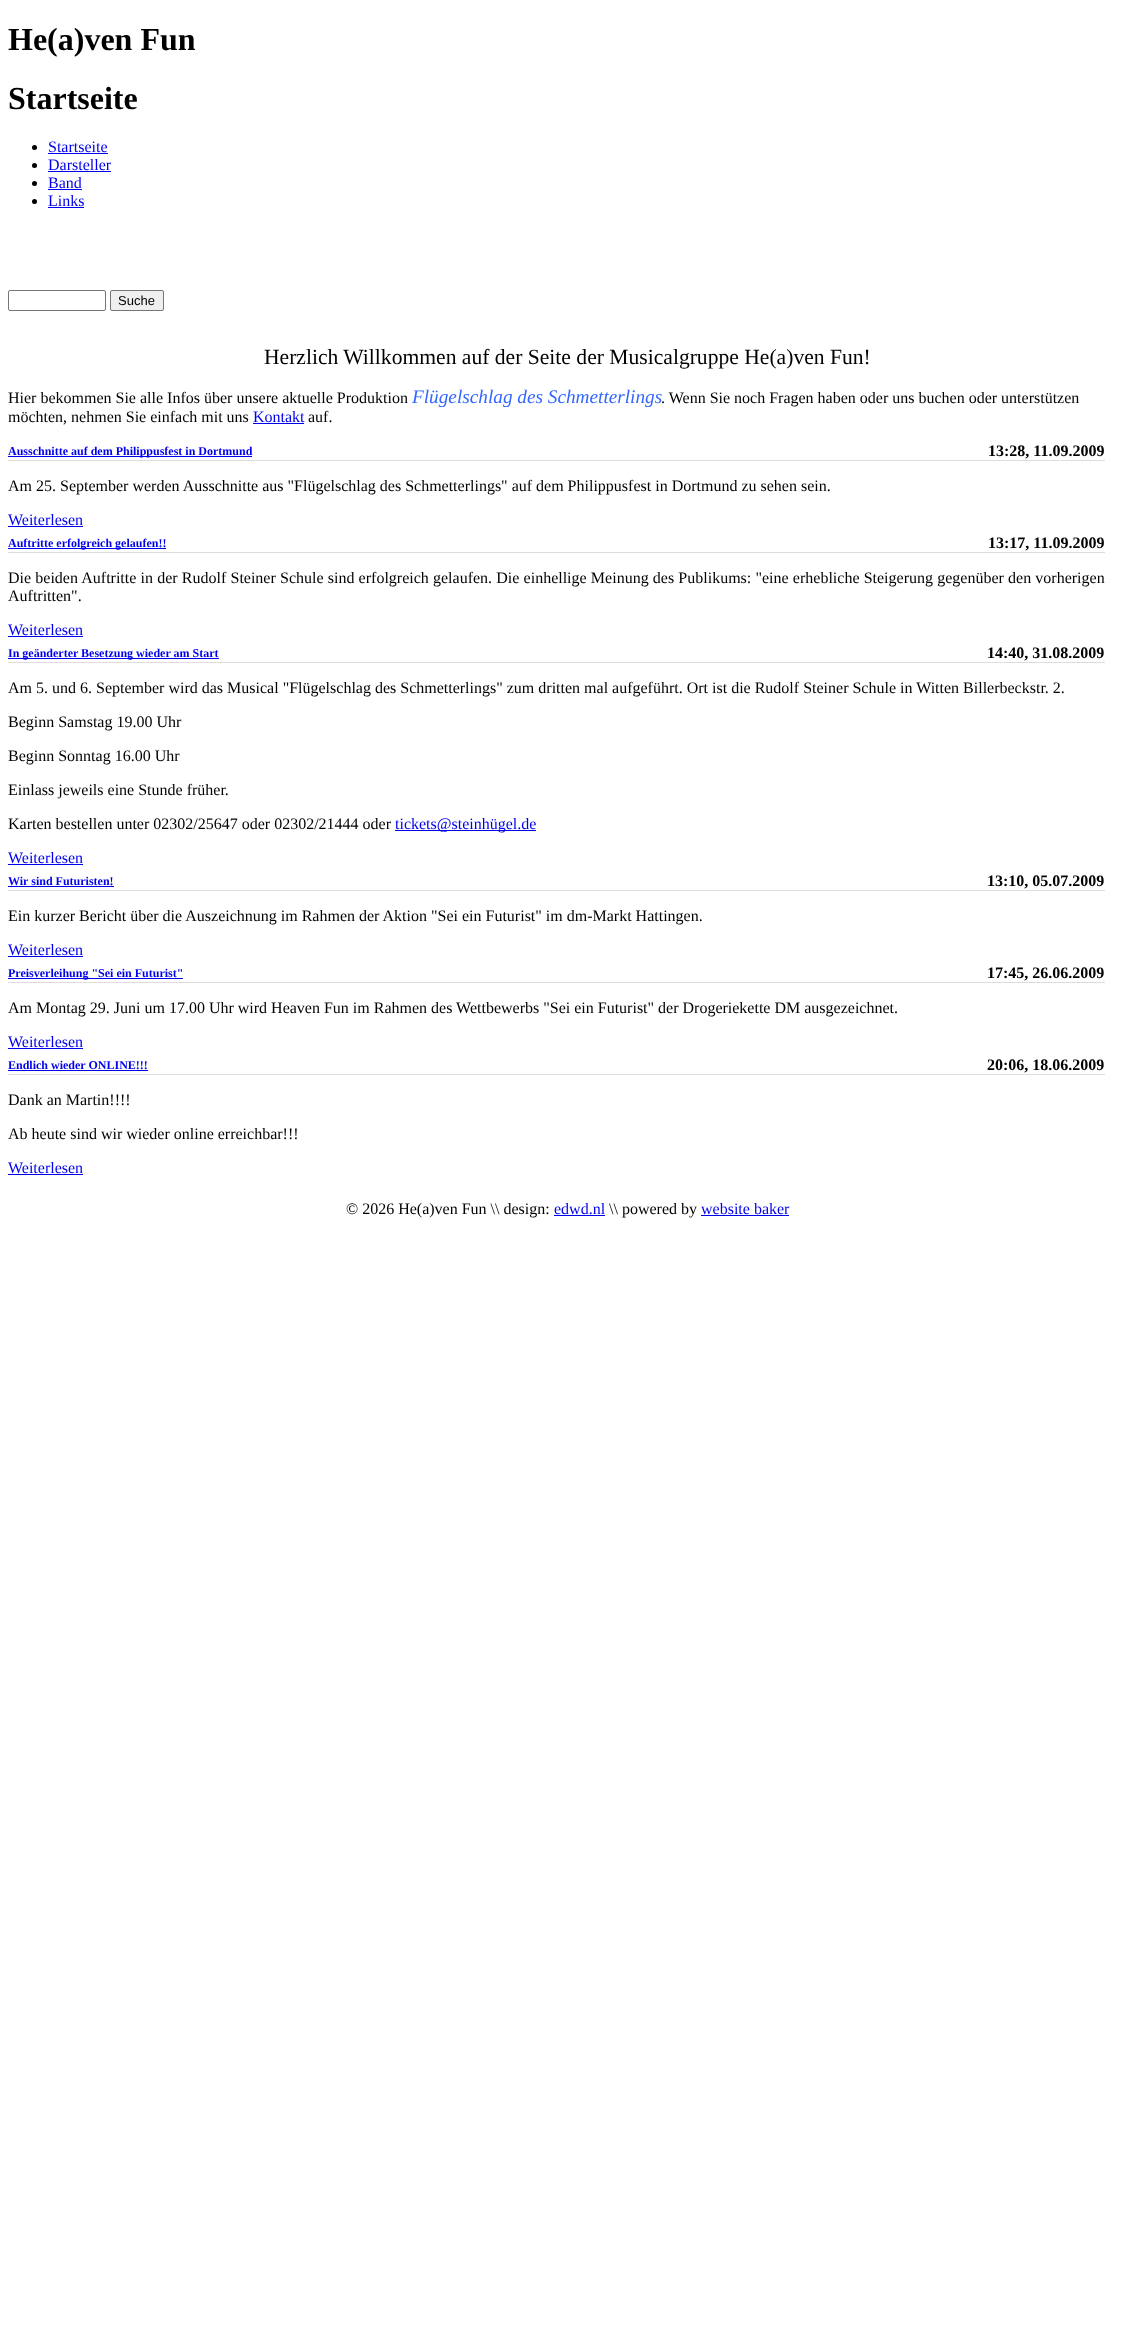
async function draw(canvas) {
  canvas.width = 1135
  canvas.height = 2336
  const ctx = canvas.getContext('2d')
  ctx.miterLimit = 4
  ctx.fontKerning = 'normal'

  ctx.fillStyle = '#fff'
  ctx.fillRect(0, 0, 1135, 2336)
  ctx.font = 'bold 32px Liberation Serif'
  ctx.fillStyle = '#000'
  ctx.fillText('He(a)ven Fun', 8, 50)
  ctx.fillText('Startseite', 8, 109)
  ctx.beginPath()
  ctx.arc(34.5, 147.5, 2.5, 0, 2 * Math.PI)
  ctx.fill()
  ctx.font = '16px Liberation Serif'
  ctx.fillStyle = '#00e'
  ctx.fillText('Startseite', 48, 152)
  ctx.fillRect(48, 153, 60, 1)
  ctx.fillStyle = '#000'
  ctx.beginPath()
  ctx.arc(34.5, 165.5, 2.5, 0, 2 * Math.PI)
  ctx.fill()
  ctx.fillStyle = '#00e'
  ctx.fillText('Darsteller', 48, 170)
  ctx.fillRect(48, 171, 63, 1)
  ctx.fillStyle = '#000'
  ctx.beginPath()
  ctx.arc(34.5, 183.5, 2.5, 0, 2 * Math.PI)
  ctx.fill()
  ctx.fillStyle = '#00e'
  ctx.fillText('Band', 48, 188)
  ctx.fillRect(48, 189, 34, 1)
  ctx.fillStyle = '#000'
  ctx.beginPath()
  ctx.arc(34.5, 201.5, 2.5, 0, 2 * Math.PI)
  ctx.fill()
  ctx.fillStyle = '#00e'
  ctx.fillText('Links', 48, 206)
  ctx.fillRect(48, 207, 36, 1)
  ctx.beginPath()
  ctx.roundRect(8.5, 290.5, 97, 20, 1.5)
  ctx.strokeStyle = '#767676'
  ctx.stroke()
  ctx.fillStyle = '#efefef'
  ctx.beginPath()
  ctx.roundRect(110.5, 290.5, 53, 20, 1.5)
  ctx.fill()
  ctx.stroke()
  ctx.font = '13px Liberation Sans'
  ctx.fillStyle = '#000'
  ctx.fillText('Suche', 118, 305)
  ctx.font = '21.6px Liberation Serif'
  ctx.fillText('Herzlich Willkommen auf der Seite der Musicalgruppe He(a)ven Fun!', 264, 364)
  ctx.font = '16px Liberation Serif'
  ctx.fillText('Hier bekommen Sie alle Infos über unsere aktuelle Produktion', 8, 403)
  ctx.font = 'italic 19.25px Liberation Serif'
  ctx.fillStyle = '#36f'
  ctx.fillText('Flügelschlag des Schmetterlings', 412, 403)
  ctx.font = '16px Liberation Serif'
  ctx.fillStyle = '#000'
  ctx.fillText('. Wenn Sie noch Fragen haben oder uns buchen oder unterstützen', 661, 403)
  ctx.fillText('möchten, nehmen Sie einfach mit uns', 8, 422)
  ctx.fillStyle = '#00e'
  ctx.fillText('Kontakt', 253, 422)
  ctx.fillRect(253, 423, 51, 1)
  ctx.fillStyle = '#000'
  ctx.fillText('auf.', 308, 422)
  ctx.fillStyle = '#ddd'
  ctx.fillRect(8, 460, 1097, 1)
  ctx.fillStyle = '#00e'
  ctx.fillRect(8, 456, 244, 1)
  ctx.font = 'bold 12px Liberation Serif'
  ctx.fillText('Ausschnitte auf dem Philippusfest in Dortmund', 8, 455)
  ctx.font = 'bold 16px Liberation Serif'
  ctx.fillStyle = '#000'
  ctx.fillText('13:28, 11.09.2009', 988, 456)
  ctx.font = '16px Liberation Serif'
  ctx.fillText('Am 25. September werden Ausschnitte aus "Flügelschlag des Schmetterlings" auf dem Philippusfest in Dortmund zu sehen sein.', 8, 491)
  ctx.fillStyle = '#00e'
  ctx.fillText('Weiterlesen', 8, 525)
  ctx.fillRect(8, 526, 75, 1)
  ctx.fillStyle = '#ddd'
  ctx.fillRect(8, 552, 1097, 1)
  ctx.fillStyle = '#00e'
  ctx.fillRect(8, 548, 158, 1)
  ctx.font = 'bold 12px Liberation Serif'
  ctx.fillText('Auftritte erfolgreich gelaufen!!', 8, 547)
  ctx.font = 'bold 16px Liberation Serif'
  ctx.fillStyle = '#000'
  ctx.fillText('13:17, 11.09.2009', 988, 548)
  ctx.wordSpacing = '0.2px'
  ctx.font = '16px Liberation Serif'
  ctx.fillText('Die beiden Auftritte in der Rudolf Steiner Schule sind erfolgreich gelaufen. Die einhellige Meinung des Publikums: "eine erhebliche Steigerung gegenüber den vorherigen', 8, 583)
  ctx.wordSpacing = '0px'
  ctx.fillText('Auftritten".', 8, 601)
  ctx.fillStyle = '#00e'
  ctx.fillText('Weiterlesen', 8, 635)
  ctx.fillRect(8, 636, 75, 1)
  ctx.fillStyle = '#ddd'
  ctx.fillRect(8, 662, 1097, 1)
  ctx.fillStyle = '#00e'
  ctx.fillRect(8, 658, 211, 1)
  ctx.font = 'bold 12px Liberation Serif'
  ctx.fillText('In geänderter Besetzung wieder am Start', 8, 657)
  ctx.font = 'bold 16px Liberation Serif'
  ctx.fillStyle = '#000'
  ctx.fillText('14:40, 31.08.2009', 987, 658)
  ctx.font = '16px Liberation Serif'
  ctx.fillText('Am 5. und 6. September wird das Musical "Flügelschlag des Schmetterlings" zum dritten mal aufgeführt. Ort ist die Rudolf Steiner Schule in Witten Billerbeckstr. 2.', 8, 693)
  ctx.fillText('Beginn Samstag 19.00 Uhr', 8, 727)
  ctx.fillText('Beginn Sonntag 16.00 Uhr', 8, 761)
  ctx.fillText('Einlass jeweils eine Stunde früher.', 8, 795)
  ctx.fillText('Karten bestellen unter 02302/25647 oder 02302/21444 oder', 8, 829)
  ctx.fillStyle = '#00e'
  ctx.fillRect(395, 830, 141, 1)
  ctx.fillText('tickets@steinhügel.de', 395, 829)
  ctx.fillText('Weiterlesen', 8, 863)
  ctx.fillRect(8, 864, 75, 1)
  ctx.fillStyle = '#ddd'
  ctx.fillRect(8, 890, 1097, 1)
  ctx.font = 'bold 12px Liberation Serif'
  ctx.fillStyle = '#00e'
  ctx.fillText('Wir sind Futuristen!', 8, 885)
  ctx.fillRect(8, 886, 106, 1)
  ctx.font = 'bold 16px Liberation Serif'
  ctx.fillStyle = '#000'
  ctx.fillText('13:10, 05.07.2009', 987, 886)
  ctx.font = '16px Liberation Serif'
  ctx.fillText('Ein kurzer Bericht über die Auszeichnung im Rahmen der Aktion "Sei ein Futurist" im dm-Markt Hattingen.', 8, 921)
  ctx.fillStyle = '#00e'
  ctx.fillText('Weiterlesen', 8, 955)
  ctx.fillRect(8, 956, 75, 1)
  ctx.fillStyle = '#ddd'
  ctx.fillRect(8, 982, 1097, 1)
  ctx.fillStyle = '#00e'
  ctx.fillRect(8, 978, 175, 1)
  ctx.font = 'bold 12px Liberation Serif'
  ctx.fillText('Preisverleihung "Sei ein Futurist"', 8, 977)
  ctx.font = 'bold 16px Liberation Serif'
  ctx.fillStyle = '#000'
  ctx.fillText('17:45, 26.06.2009', 987, 978)
  ctx.font = '16px Liberation Serif'
  ctx.fillText('Am Montag 29. Juni um 17.00 Uhr wird Heaven Fun im Rahmen des Wettbewerbs "Sei ein Futurist" der Drogeriekette DM ausgezeichnet.', 8, 1013)
  ctx.fillStyle = '#00e'
  ctx.fillText('Weiterlesen', 8, 1047)
  ctx.fillRect(8, 1048, 75, 1)
  ctx.fillStyle = '#ddd'
  ctx.fillRect(8, 1074, 1097, 1)
  ctx.font = 'bold 12px Liberation Serif'
  ctx.fillStyle = '#00e'
  ctx.fillText('Endlich wieder ONLINE!!!', 8, 1069)
  ctx.fillRect(8, 1070, 140, 1)
  ctx.font = 'bold 16px Liberation Serif'
  ctx.fillStyle = '#000'
  ctx.fillText('20:06, 18.06.2009', 987, 1070)
  ctx.font = '16px Liberation Serif'
  ctx.fillText('Dank an Martin!!!!', 8, 1105)
  ctx.fillText('Ab heute sind wir wieder online erreichbar!!!', 8, 1139)
  ctx.fillStyle = '#00e'
  ctx.fillText('Weiterlesen', 8, 1173)
  ctx.fillRect(8, 1174, 75, 1)
  ctx.fillStyle = '#000'
  ctx.fillText('© 2026 He(a)ven Fun \\\\ design:', 346, 1214)
  ctx.fillStyle = '#00e'
  ctx.fillText('edwd.nl', 554, 1214)
  ctx.fillRect(554, 1215, 51, 1)
  ctx.fillStyle = '#000'
  ctx.fillText('\\\\ powered by', 609, 1214)
  ctx.fillStyle = '#00e'
  ctx.fillText('website baker', 701, 1214)
  ctx.fillRect(701, 1215, 88, 1)
}

draw(document.querySelector('canvas'))
